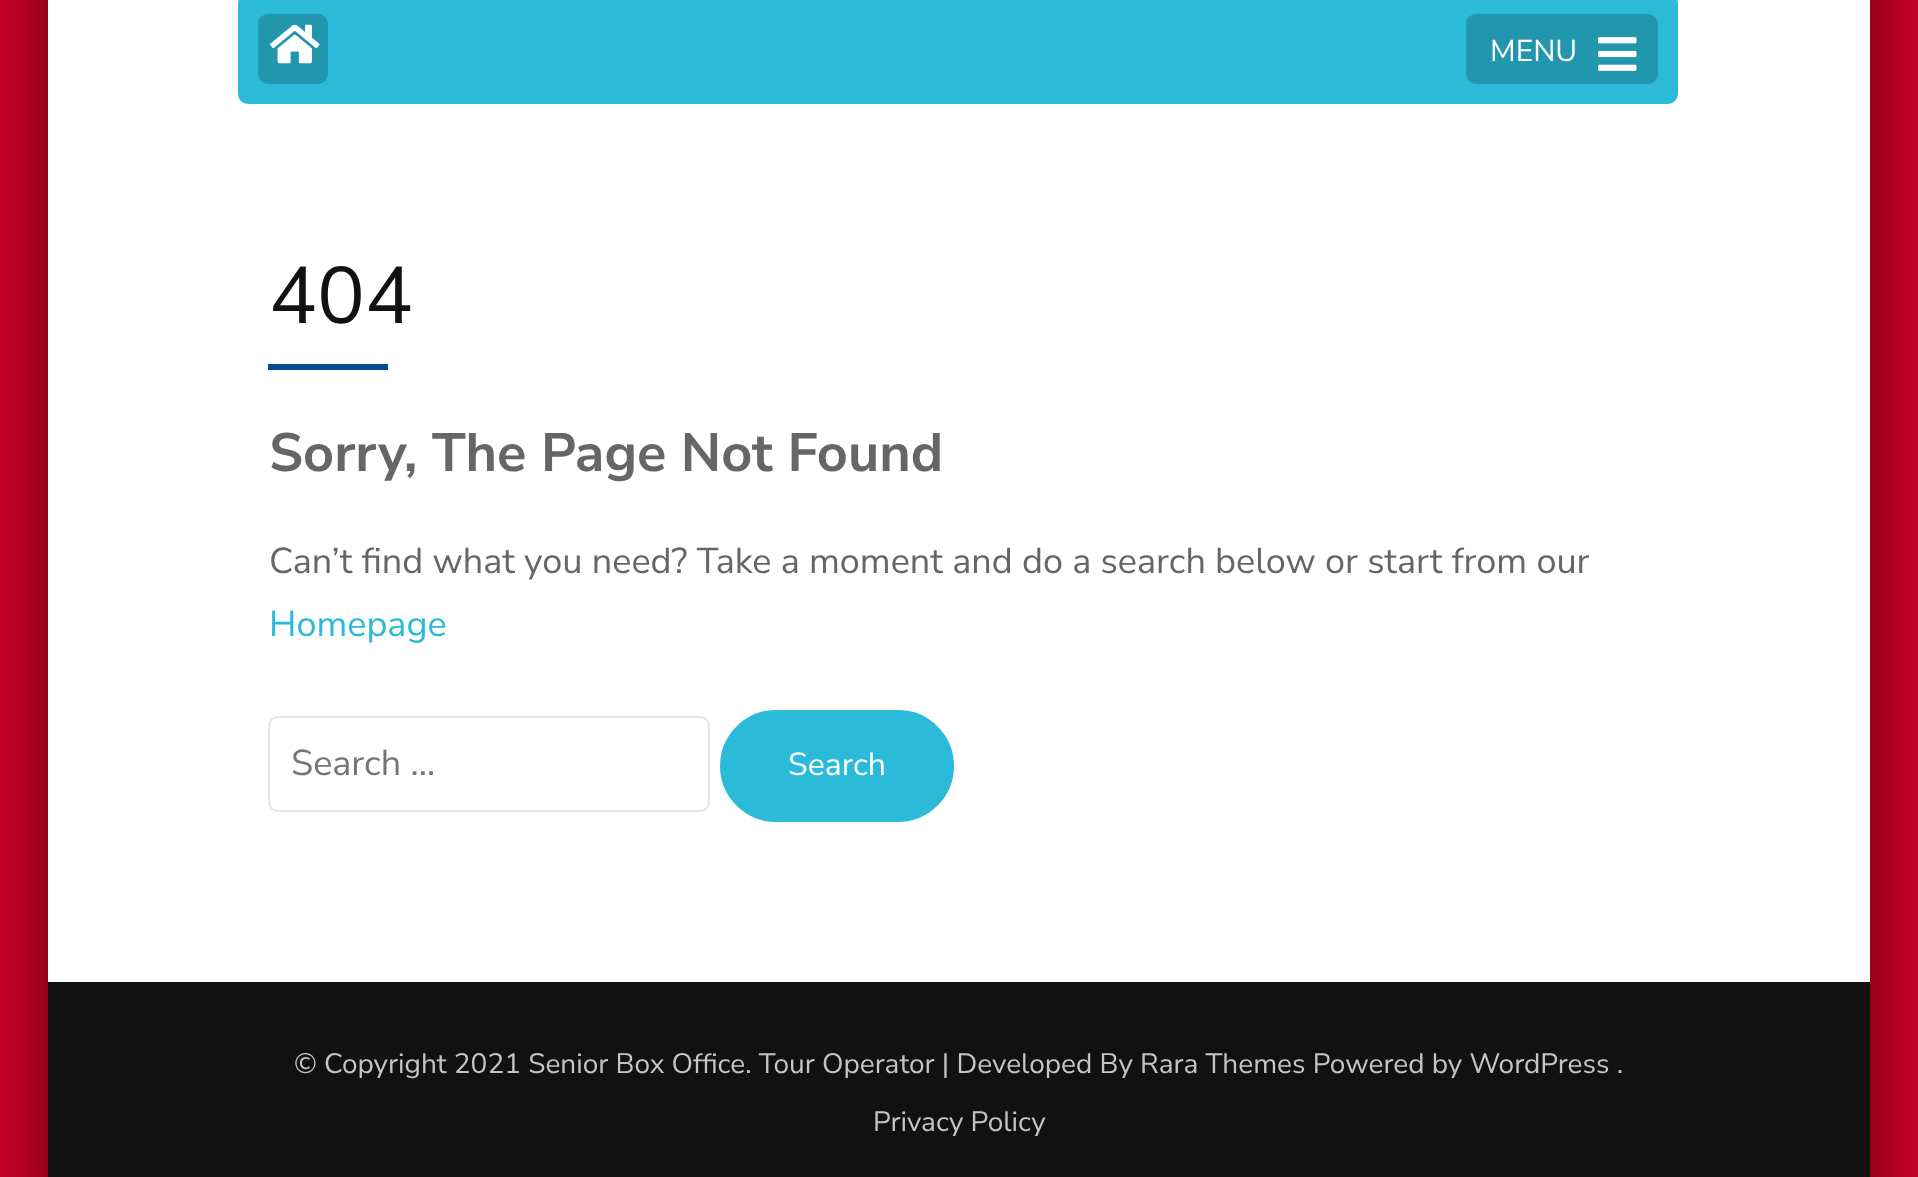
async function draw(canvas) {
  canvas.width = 1918
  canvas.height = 1177
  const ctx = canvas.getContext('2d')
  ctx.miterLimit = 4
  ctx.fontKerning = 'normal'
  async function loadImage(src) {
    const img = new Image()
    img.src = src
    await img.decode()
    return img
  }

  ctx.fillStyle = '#c60126'
  ctx.fillRect(0, 0, 1918, 1177)
  ctx.fillStyle = '#00000080'
  ctx.filter = 'blur(30px)'
  ctx.beginPath()
  ctx.rect(48, -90, 1822, 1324)
  ctx.fill()
  ctx.filter = 'none'
  ctx.fillStyle = '#fff'
  ctx.fillRect(48, 0, 1822, 982)
  ctx.fillStyle = '#2bbbd8'
  ctx.beginPath()
  ctx.roundRect(238, -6, 1440, 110, 10)
  ctx.fill()
  ctx.fillStyle = '#2296ad'
  ctx.beginPath()
  ctx.roundRect(258, 14, 70, 70, 10)
  ctx.fill()
  ctx.drawImage(await loadImage('image0.png'), 270, 24, 50, 40)
  ctx.beginPath()
  ctx.roundRect(1466, 14, 192, 70, 10)
  ctx.fill()
  ctx.font = '30px Nunito Sans'
  ctx.fillStyle = '#fff'
  ctx.fillText('MENU', 1490, 61)
  ctx.drawImage(await loadImage('image1.png'), 1598, 37, 39, 34)
  ctx.font = '80px Nunito Sans'
  ctx.fillStyle = '#111'
  ctx.fillText('404', 269, 323)
  ctx.fillStyle = '#034b92'
  ctx.fillRect(268, 364, 120, 6)
  ctx.font = 'bold 54px Nunito Sans'
  ctx.fillStyle = '#666'
  ctx.fillText('Sorry, The Page Not Found', 269, 471)
  ctx.font = '36px Nunito Sans'
  ctx.fillText('Can’t find what you need? Take a moment and do a search below or start from our', 269, 573)
  ctx.fillStyle = '#2bbad8'
  ctx.fillText('Homepage', 269, 636)
  ctx.beginPath()
  ctx.roundRect(269, 717, 440, 94, 9)
  ctx.strokeStyle = '#e5e5e5'
  ctx.lineWidth = 2
  ctx.stroke()
  ctx.fillStyle = '#757575'
  ctx.fillText('Search …', 291, 775)
  ctx.fillStyle = '#2bbbd8'
  ctx.beginPath()
  ctx.roundRect(722, 712, 230, 108, 54)
  ctx.fill()
  ctx.strokeStyle = '#2bbbd8'
  ctx.lineWidth = 4
  ctx.stroke()
  ctx.font = '32px Nunito Sans'
  ctx.fillStyle = '#fff'
  ctx.fillText('Search', 788, 775)
  ctx.fillStyle = '#111'
  ctx.fillRect(48, 982, 1822, 195)
  ctx.font = '28px Nunito Sans'
  ctx.fillStyle = '#c4c4c4'
  ctx.fillText('© Copyright 2021 Senior Box Office. Tour Operator | Developed By Rara Themes Powered by WordPress .', 294, 1073)
  ctx.fillText('Privacy Policy', 873, 1131)
}

draw(document.querySelector('canvas'))
